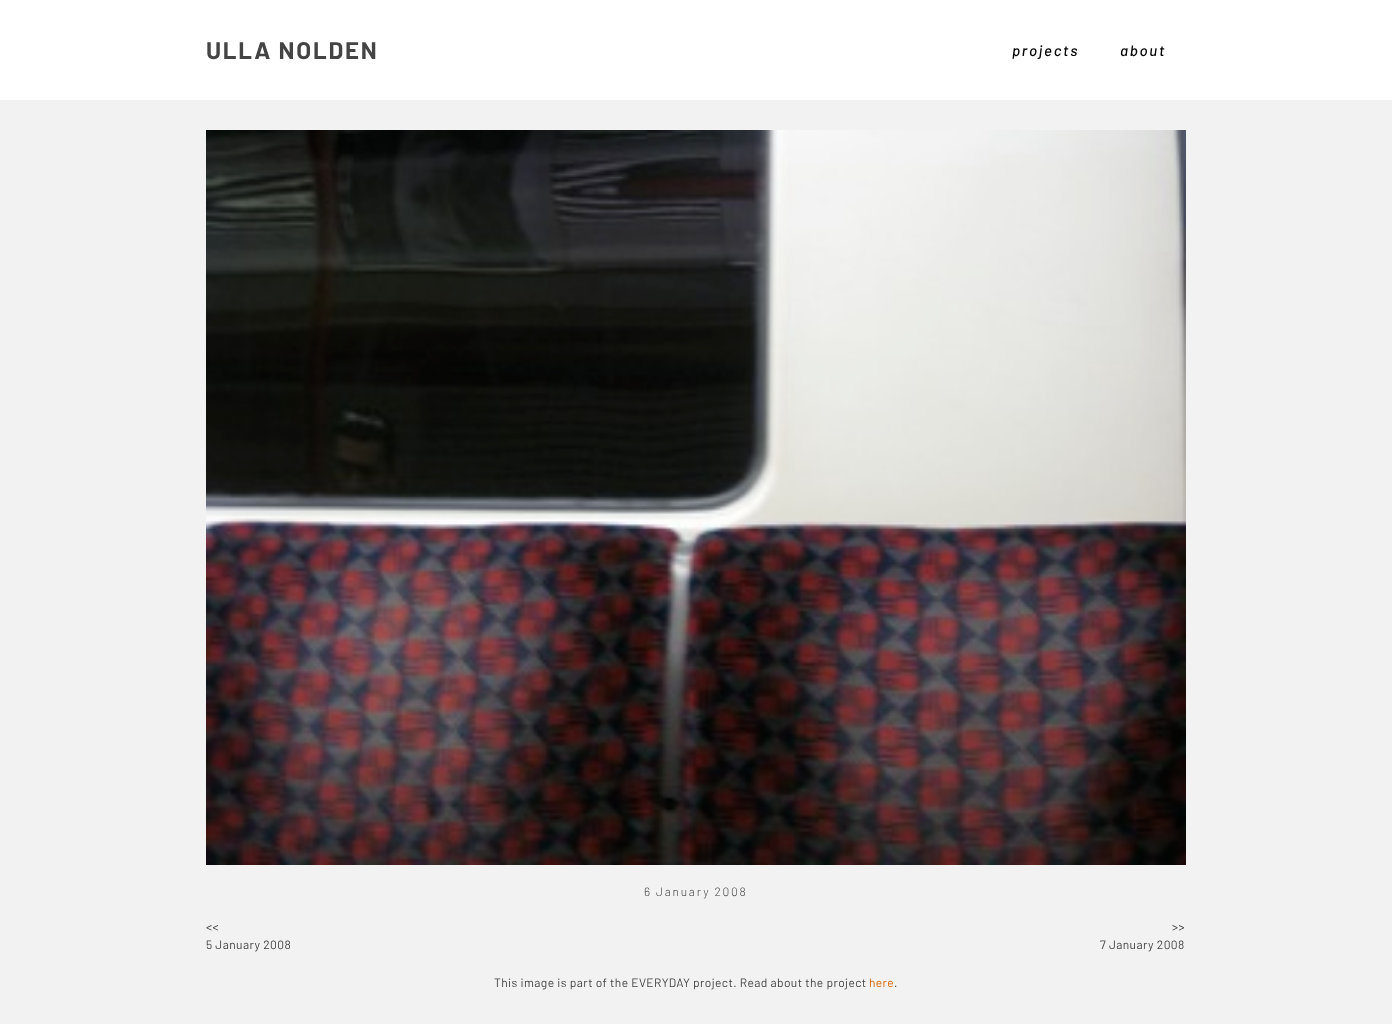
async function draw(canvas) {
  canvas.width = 1392
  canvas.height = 1024
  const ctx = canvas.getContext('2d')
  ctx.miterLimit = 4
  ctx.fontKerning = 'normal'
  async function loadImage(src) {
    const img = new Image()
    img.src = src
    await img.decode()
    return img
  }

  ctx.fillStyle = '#f2f2f2'
  ctx.fillRect(0, 0, 1392, 1024)
  ctx.fillStyle = '#fff'
  ctx.fillRect(0, 0, 1392, 100)
  ctx.letterSpacing = '1.75px'
  ctx.font = 'bold 24px Barlow'
  ctx.fillStyle = '#444'
  ctx.fillText('ULLA NOLDEN', 206, 59)
  ctx.font = 'italic 500 15px Barlow'
  ctx.fillStyle = '#000'
  ctx.fillText('projects', 1012, 56)
  ctx.fillText('about', 1120, 56)
  ctx.drawImage(await loadImage('image0.png'), 206, 130, 980, 735)
  ctx.font = '300 12px Barlow'
  ctx.fillStyle = '#444'
  ctx.fillText('6 January 2008', 644, 896)
  ctx.letterSpacing = '0.4px'
  ctx.font = '12px Barlow'
  ctx.fillText('<<', 206, 931)
  ctx.fillText('5 January 2008', 206, 949)
  ctx.fillText('>>', 1172, 931)
  ctx.fillText('7 January 2008', 1100, 949)
  ctx.fillText('This image is part of the EVERYDAY project. Read about the project', 494, 987)
  ctx.fillStyle = '#d76500'
  ctx.fillText('here', 869, 987)
  ctx.fillStyle = '#444'
  ctx.fillText('.', 894, 987)
}

draw(document.querySelector('canvas'))
